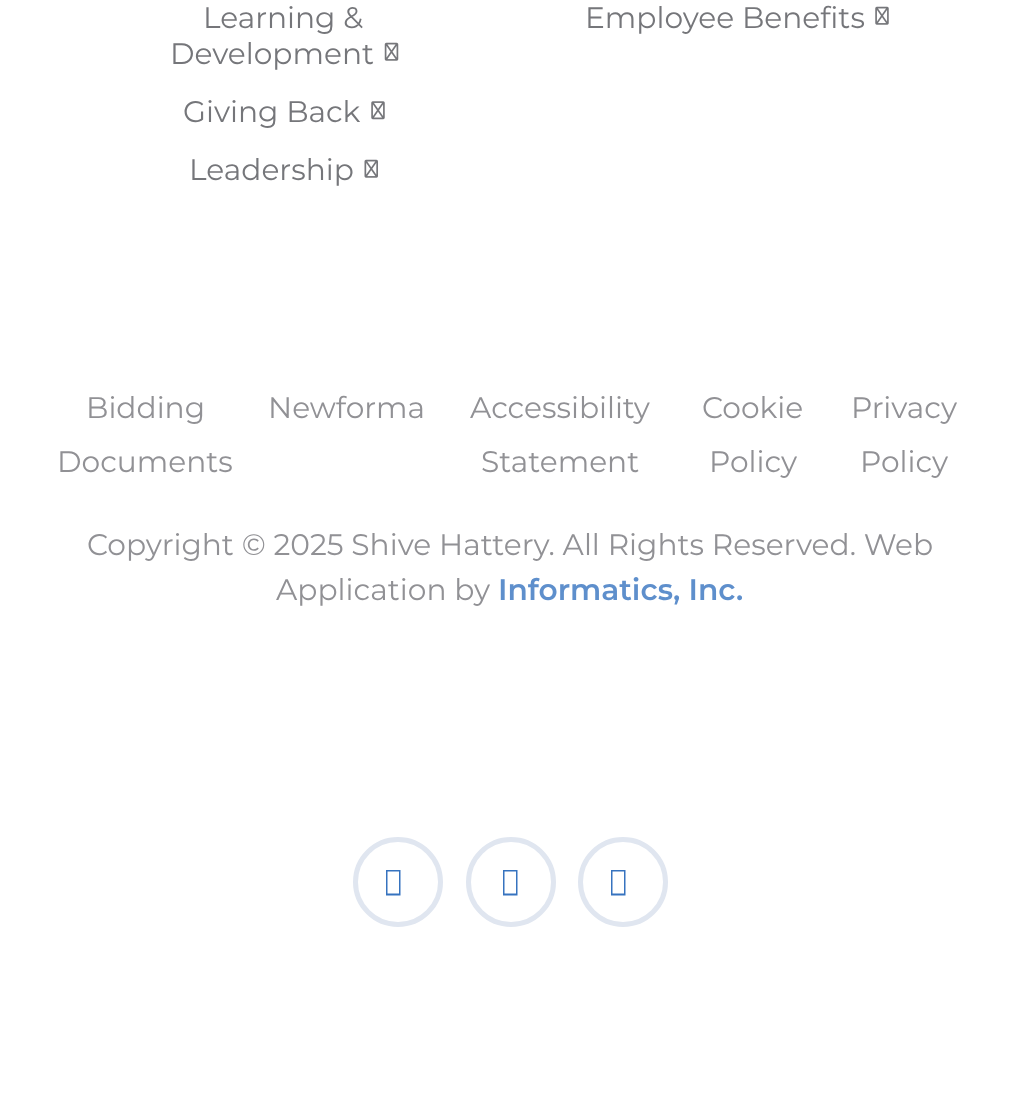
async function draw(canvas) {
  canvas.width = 1018
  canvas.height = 1105
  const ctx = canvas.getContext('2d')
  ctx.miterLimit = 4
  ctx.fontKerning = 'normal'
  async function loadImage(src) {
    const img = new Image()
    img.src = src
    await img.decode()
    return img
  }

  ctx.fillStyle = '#fff'
  ctx.fillRect(0, 0, 1018, 1105)
  ctx.font = '29.7px Montserrat'
  ctx.fillStyle = '#75767a'
  ctx.fillText('Learning &', 203, 28)
  ctx.fillText('Development', 170, 64)
  ctx.drawImage(await loadImage('image0.png'), 384, 42, 15, 19)
  ctx.fillText('Giving Back', 183, 122)
  ctx.drawImage(await loadImage('image1.png'), 371, 101, 14, 19)
  ctx.fillText('Leadership', 189, 180)
  ctx.drawImage(await loadImage('image2.png'), 364, 159, 14, 19)
  ctx.fillText('Employee Benefits', 585, 28)
  ctx.drawImage(await loadImage('image3.png'), 875, 6, 14, 19)
  ctx.fillStyle = '#919195'
  ctx.fillText('Bidding', 86, 418)
  ctx.fillText('Documents', 57, 472)
  ctx.fillText('Newforma', 268, 418)
  ctx.fillText('Accessibility', 470, 418)
  ctx.fillText('Statement', 481, 472)
  ctx.fillText('Cookie', 702, 418)
  ctx.fillText('Policy', 709, 472)
  ctx.fillText('Privacy', 851, 418)
  ctx.fillText('Policy', 860, 472)
  ctx.fillText('Copyright © 2025 Shive Hattery. All Rights Reserved. Web', 87, 555)
  ctx.fillText('Application by', 276, 600)
  ctx.font = '600 29.7px Montserrat'
  ctx.fillStyle = '#5e8fcc'
  ctx.fillText('Informatics, Inc.', 498, 600)
  ctx.beginPath()
  ctx.arc(398, 882, 42.5, 0, 2 * Math.PI)
  ctx.strokeStyle = '#e0e6f0'
  ctx.lineWidth = 5
  ctx.stroke()
  ctx.fillStyle = '#3673bf'
  ctx.beginPath()
  ctx.moveTo(386, 895.5)
  ctx.lineTo(386, 870)
  ctx.lineTo(400.5, 870)
  ctx.lineTo(400.5, 895.5)
  ctx.closePath()
  ctx.moveTo(387.5, 893.5)
  ctx.lineTo(399, 893.5)
  ctx.lineTo(399, 871.5)
  ctx.lineTo(387.5, 871.5)
  ctx.closePath()
  ctx.fill()
  ctx.beginPath()
  ctx.arc(511, 882, 42.5, 0, 2 * Math.PI)
  ctx.stroke()
  ctx.beginPath()
  ctx.moveTo(503, 895.5)
  ctx.lineTo(503, 870)
  ctx.lineTo(517.5, 870)
  ctx.lineTo(517.5, 895.5)
  ctx.closePath()
  ctx.moveTo(504.5, 893.5)
  ctx.lineTo(516, 893.5)
  ctx.lineTo(516, 871.5)
  ctx.lineTo(504.5, 871.5)
  ctx.closePath()
  ctx.fill()
  ctx.beginPath()
  ctx.arc(623, 882, 42.5, 0, 2 * Math.PI)
  ctx.stroke()
  ctx.beginPath()
  ctx.moveTo(611, 895.5)
  ctx.lineTo(611, 870)
  ctx.lineTo(625.5, 870)
  ctx.lineTo(625.5, 895.5)
  ctx.closePath()
  ctx.moveTo(612.5, 893.5)
  ctx.lineTo(624, 893.5)
  ctx.lineTo(624, 871.5)
  ctx.lineTo(612.5, 871.5)
  ctx.closePath()
  ctx.fill()
}

draw(document.querySelector('canvas'))
